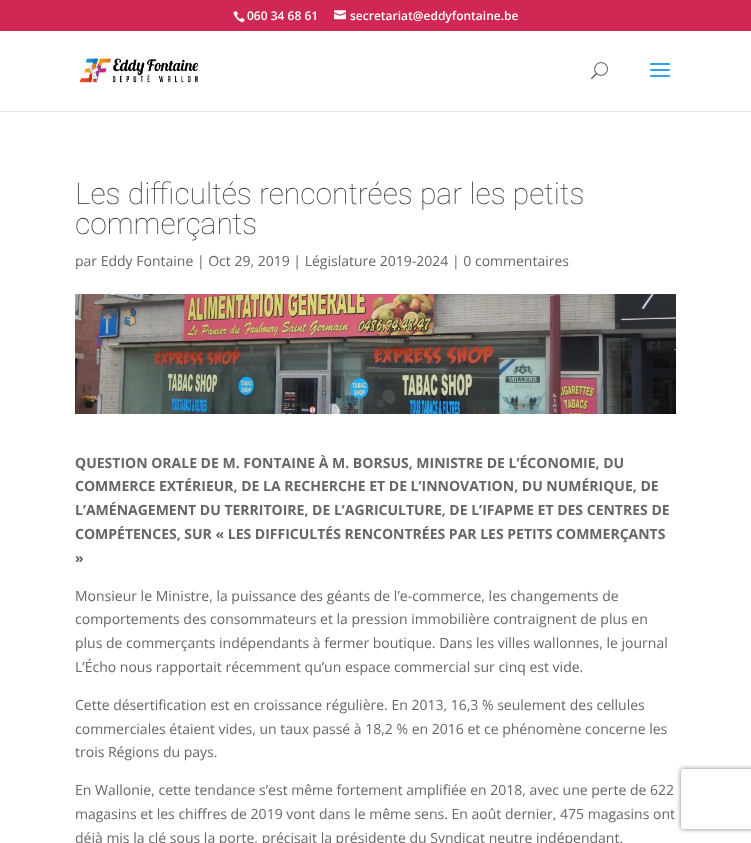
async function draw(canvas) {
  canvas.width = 751
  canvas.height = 843
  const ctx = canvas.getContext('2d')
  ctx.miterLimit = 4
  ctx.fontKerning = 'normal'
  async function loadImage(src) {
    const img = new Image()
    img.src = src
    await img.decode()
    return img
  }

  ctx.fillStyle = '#fff'
  ctx.fillRect(0, 0, 751, 843)
  ctx.fillStyle = '#d12754'
  ctx.fillRect(0, 0, 751, 31)
  ctx.drawImage(await loadImage('image0.png'), 233, 11, 12, 12)
  ctx.font = '600 12px Open Sans'
  ctx.fillStyle = '#fff'
  ctx.fillText('060 34 68 61', 247, 20)
  ctx.drawImage(await loadImage('image1.png'), 334, 10, 12, 10)
  ctx.fillText('secretariat@eddyfontaine.be', 350, 20)
  ctx.fillStyle = '#e6e6e6'
  ctx.fillRect(0, 111, 751, 1)
  ctx.drawImage(await loadImage('image2.png'), 79, 58, 119, 25)
  ctx.drawImage(await loadImage('image3.png'), 591, 62, 17, 18)
  ctx.drawImage(await loadImage('image4.png'), 650, 63, 20, 14)
  ctx.font = '100 30px Roboto'
  ctx.fillStyle = '#333'
  ctx.fillText('Les difficultés rencontrées par les petits', 75, 204)
  ctx.fillText('commerçants', 75, 234)
  ctx.font = '14px Open Sans'
  ctx.fillStyle = '#666'
  ctx.fillText('par Eddy Fontaine | Oct 29, 2019 | Législature 2019-2024 | 0 commentaires', 75, 266)
  ctx.drawImage(await loadImage('image5.png'), 75, 294, 601, 120)
  ctx.font = 'bold 14px Open Sans'
  ctx.fillText('QUESTION ORALE DE M. FONTAINE À M. BORSUS, MINISTRE DE L’ÉCONOMIE, DU', 75, 468)
  ctx.fillText('COMMERCE EXTÉRIEUR, DE LA RECHERCHE ET DE L’INNOVATION, DU NUMÉRIQUE, DE', 75, 491)
  ctx.fillText('L’AMÉNAGEMENT DU TERRITOIRE, DE L’AGRICULTURE, DE L’IFAPME ET DES CENTRES DE', 75, 515)
  ctx.fillText('COMPÉTENCES, SUR « LES DIFFICULTÉS RENCONTRÉES PAR LES PETITS COMMERÇANTS', 75, 539)
  ctx.fillText('»', 75, 563)
  ctx.font = '14px Open Sans'
  ctx.fillText('Monsieur le Ministre, la puissance des géants de l’e-commerce, les changements de', 75, 601)
  ctx.fillText('comportements des consommateurs et la pression immobilière contraignent de plus en', 75, 624)
  ctx.fillText('plus de commerçants indépendants à fermer boutique. Dans les villes wallonnes, le journal', 75, 648)
  ctx.fillText('L’Écho nous rapportait récemment qu’un espace commercial sur cinq est vide.', 75, 672)
  ctx.fillText('Cette désertification est en croissance régulière. En 2013, 16,3 % seulement des cellules', 75, 710)
  ctx.fillText('commerciales étaient vides, un taux passé à 18,2 % en 2016 et ce phénomène concerne les', 75, 734)
  ctx.fillText('trois Régions du pays.', 75, 757)
  ctx.fillText('En Wallonie, cette tendance s’est même fortement amplifiée en 2018, avec une perte de 622', 75, 795)
  ctx.fillText('magasins et les chiffres de 2019 vont dans le même sens. En août dernier, 475 magasins ont', 75, 819)
  ctx.fillText('déjà mis la clé sous la porte, précisait la présidente du Syndicat neutre indépendant.', 75, 843)
  ctx.save()
  ctx.beginPath()
  ctx.moveTo(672, 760)
  ctx.lineTo(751, 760)
  ctx.lineTo(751, 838)
  ctx.lineTo(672, 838)
  ctx.closePath()
  ctx.moveTo(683, 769)
  ctx.lineTo(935, 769)
  ctx.bezierCurveTo(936, 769, 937, 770, 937, 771)
  ctx.lineTo(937, 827)
  ctx.bezierCurveTo(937, 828, 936, 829, 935, 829)
  ctx.lineTo(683, 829)
  ctx.bezierCurveTo(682, 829, 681, 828, 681, 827)
  ctx.lineTo(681, 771)
  ctx.bezierCurveTo(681, 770, 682, 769, 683, 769)
  ctx.closePath()
  ctx.clip('evenodd')
  ctx.fillStyle = '#808080'
  ctx.filter = 'blur(2.5px)'
  ctx.beginPath()
  ctx.roundRect(681, 769, 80, 60, 2)
  ctx.fill()
  ctx.filter = 'none'
  ctx.restore()
}

draw(document.querySelector('canvas'))
